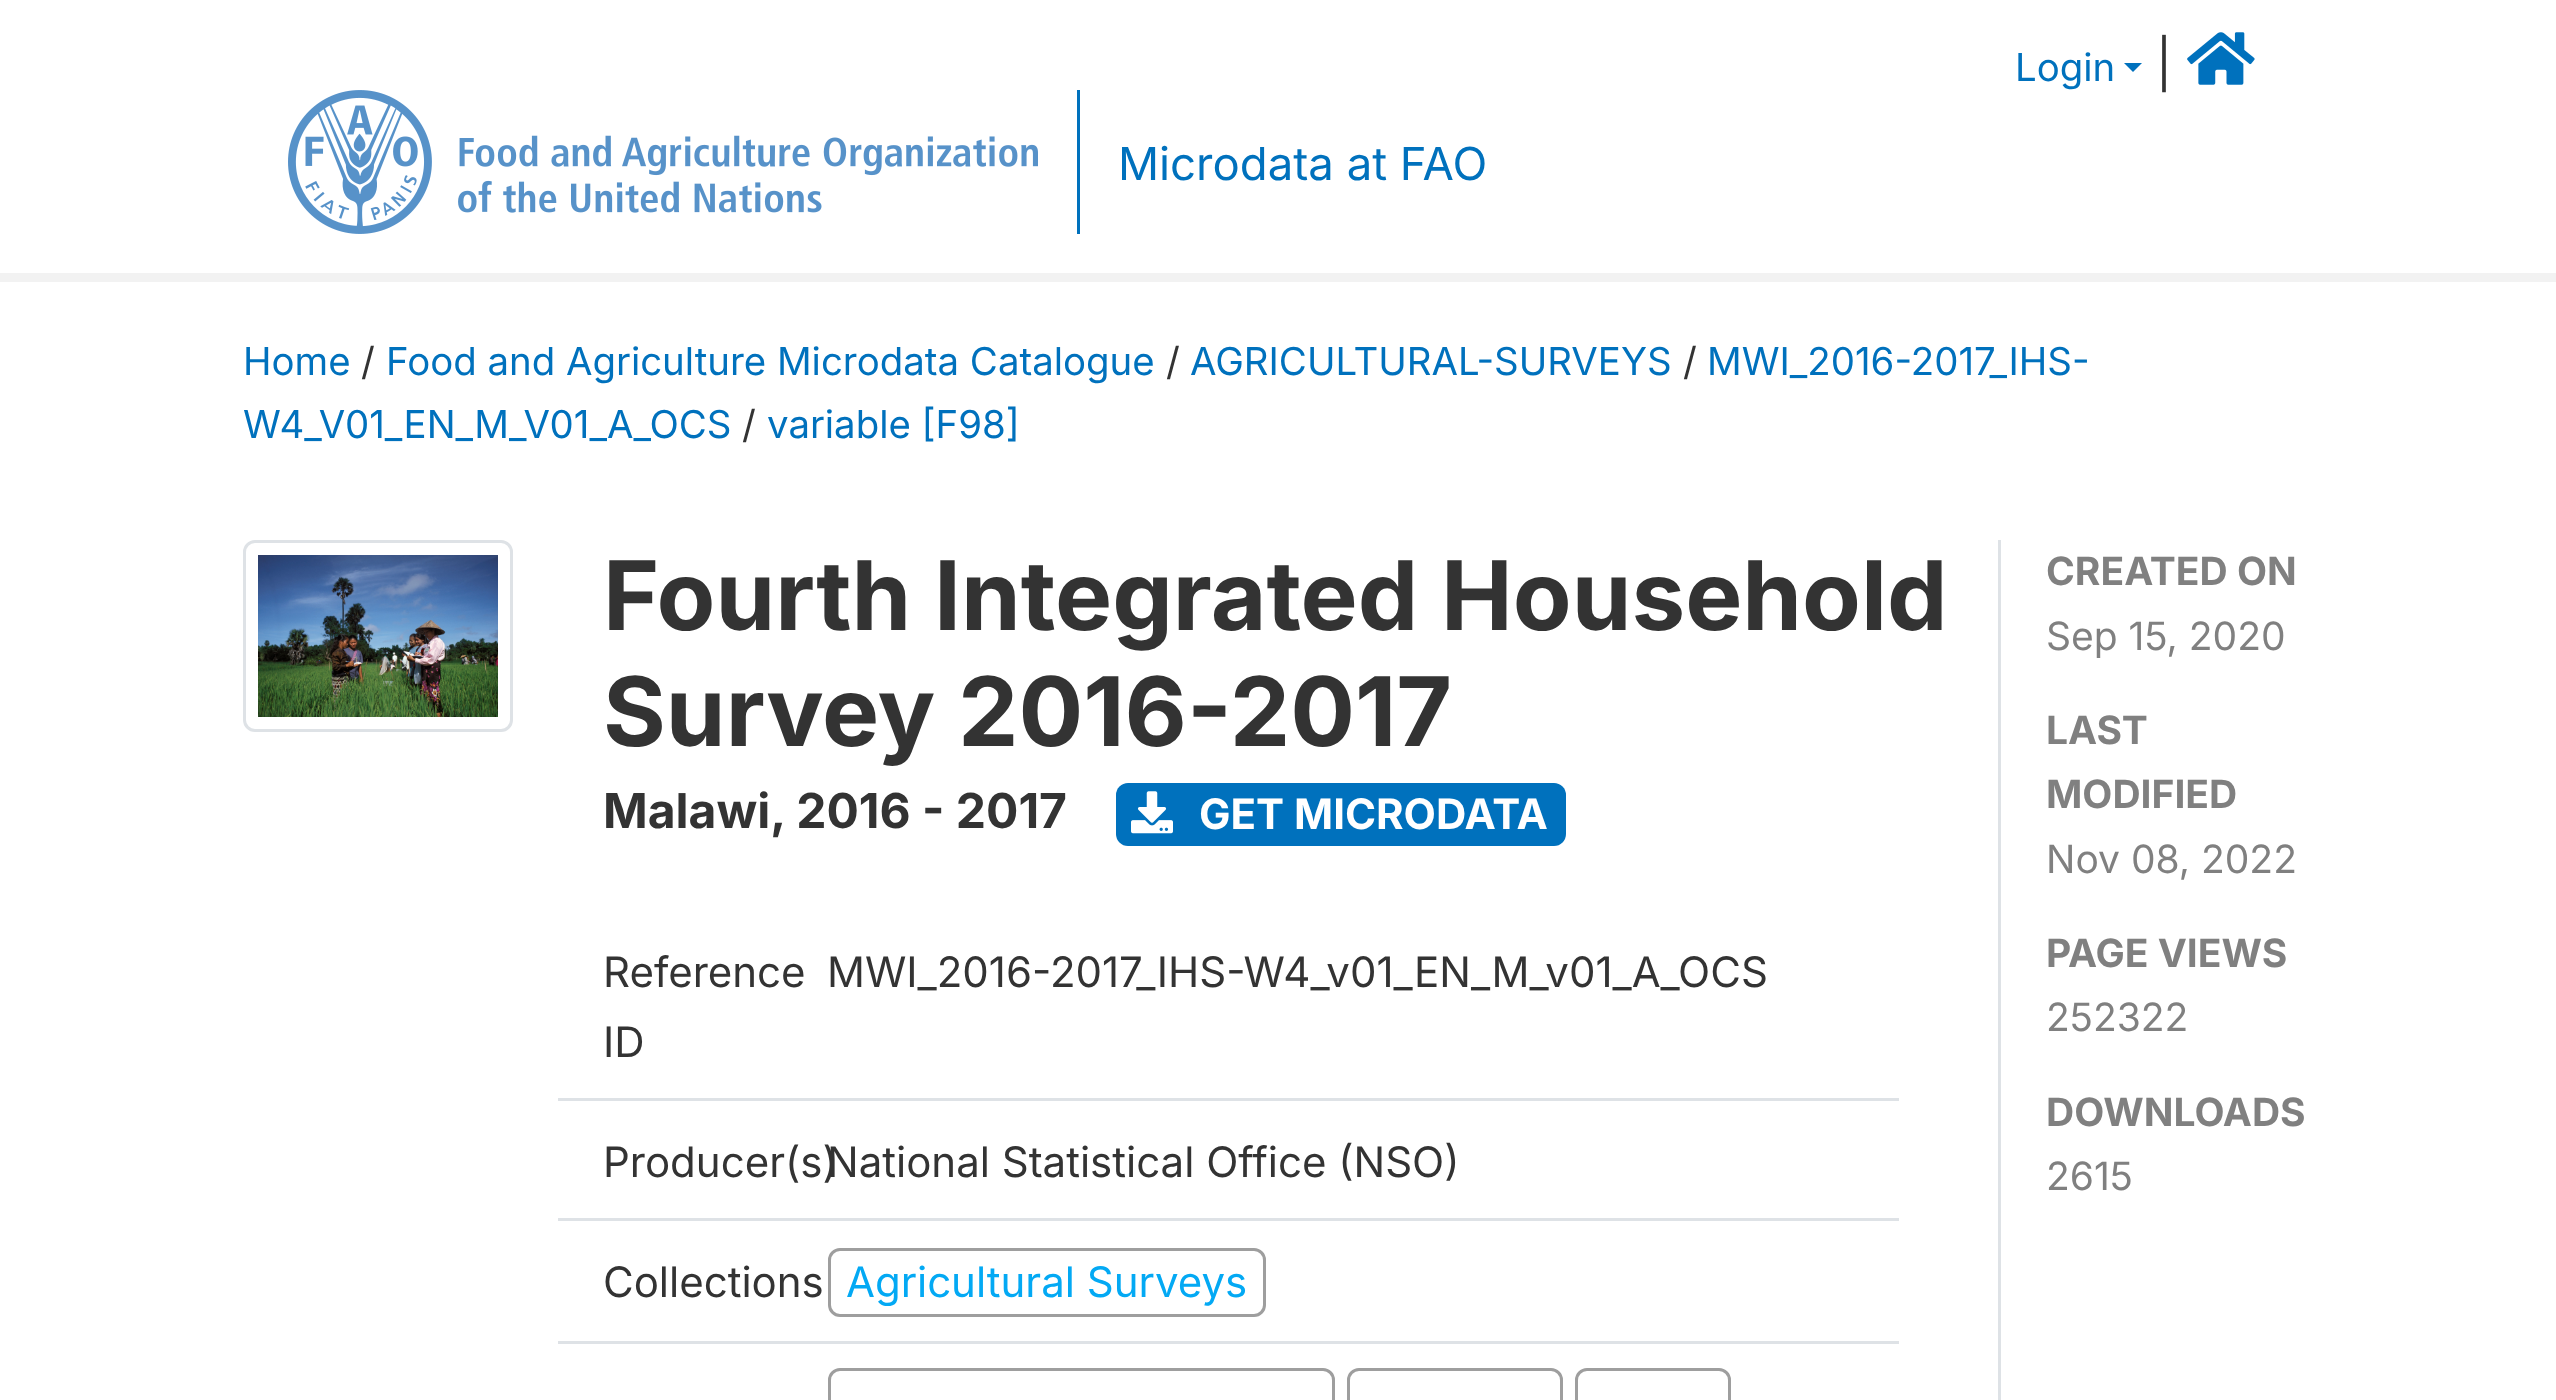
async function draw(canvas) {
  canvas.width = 2556
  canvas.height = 1400
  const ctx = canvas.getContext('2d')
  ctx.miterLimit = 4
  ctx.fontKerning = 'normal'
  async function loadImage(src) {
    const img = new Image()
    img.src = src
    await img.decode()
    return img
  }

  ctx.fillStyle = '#fff'
  ctx.fillRect(0, 0, 2556, 1400)
  ctx.fillStyle = '#f2f2f2'
  ctx.fillRect(0, 273, 2556, 9)
  ctx.font = '38.4px Inter'
  ctx.fillStyle = '#0071bd'
  ctx.fillText('Login', 2015, 81)
  ctx.beginPath()
  ctx.moveTo(2124, 63)
  ctx.lineTo(2142, 63)
  ctx.lineTo(2133, 72)
  ctx.closePath()
  ctx.fill()
  ctx.font = '48px Inter'
  ctx.fillStyle = '#333'
  ctx.fillText('|', 2156, 81)
  ctx.drawImage(await loadImage('image0.png'), 2187, 32, 68, 53)
  ctx.drawImage(await loadImage('image1.png'), 288, 90, 750, 144)
  ctx.fillStyle = '#0071bd'
  ctx.fillRect(1077, 90, 3, 144)
  ctx.font = '45.5px Inter'
  ctx.fillText('Microdata at FAO', 1118, 180)
  ctx.font = '38.4px Inter'
  ctx.fillText('Home', 243, 375)
  ctx.fillStyle = '#333'
  ctx.fillText('/', 361, 375)
  ctx.fillStyle = '#0071bd'
  ctx.fillText('Food and Agriculture Microdata Catalogue', 386, 375)
  ctx.fillStyle = '#333'
  ctx.fillText('/', 1166, 375)
  ctx.fillStyle = '#0071bd'
  ctx.fillText('AGRICULTURAL-SURVEYS', 1190, 375)
  ctx.fillStyle = '#333'
  ctx.fillText('/', 1683, 375)
  ctx.fillStyle = '#0071bd'
  ctx.fillText('MWI_2016-2017_IHS-', 1707, 375)
  ctx.fillText('W4_V01_EN_M_V01_A_OCS', 243, 438)
  ctx.fillStyle = '#333'
  ctx.fillText('/', 742, 438)
  ctx.fillStyle = '#0071bd'
  ctx.fillText('variable [F98]', 767, 438)
  ctx.beginPath()
  ctx.roundRect(244.5, 541.5, 267, 189, 10.5)
  ctx.strokeStyle = '#dee2e6'
  ctx.lineWidth = 3
  ctx.stroke()
  ctx.drawImage(await loadImage('image2.png'), 258, 555, 240, 162)
  ctx.font = 'bold 96px Inter'
  ctx.fillStyle = '#333'
  ctx.fillText('Fourth Integrated Household', 603, 630)
  ctx.fillText('Survey 2016-2017', 603, 746)
  ctx.font = 'bold 48px Inter'
  ctx.fillText('Malawi, 2016 - 2017', 603, 828)
  ctx.fillStyle = '#0071bd'
  ctx.beginPath()
  ctx.roundRect(1116, 783, 450, 63, 12)
  ctx.fill()
  ctx.drawImage(await loadImage('image3.png'), 1131, 791, 42, 43)
  ctx.font = 'bold 42px Inter'
  ctx.fillStyle = '#fff'
  ctx.fillText('GET MICRODATA', 1199, 829)
  ctx.fillStyle = '#dee2e6'
  ctx.fillRect(558, 1098, 1341, 3)
  ctx.font = '42px Inter'
  ctx.fillStyle = '#333'
  ctx.fillText('Reference', 603, 987)
  ctx.fillText('ID', 603, 1057)
  ctx.fillText('MWI_2016-2017_IHS-W4_v01_EN_M_v01_A_OCS', 827, 987)
  ctx.fillStyle = '#dee2e6'
  ctx.fillRect(558, 1218, 1341, 3)
  ctx.fillStyle = '#333'
  ctx.fillText('Producer(s)', 603, 1177)
  ctx.fillText('National Statistical Office (NSO)', 827, 1177)
  ctx.fillStyle = '#dee2e6'
  ctx.fillRect(558, 1341, 1341, 3)
  ctx.fillStyle = '#333'
  ctx.fillText('Collections', 603, 1297)
  ctx.beginPath()
  ctx.roundRect(829.5, 1249.5, 435, 66, 10.5)
  ctx.strokeStyle = '#9e9e9e'
  ctx.stroke()
  ctx.fillStyle = '#03a9f4'
  ctx.fillText('Agricultural Surveys', 846, 1297)
  ctx.beginPath()
  ctx.roundRect(829.5, 1369.5, 504, 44, 10.5)
  ctx.stroke()
  ctx.beginPath()
  ctx.roundRect(1348.5, 1369.5, 213, 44, 10.5)
  ctx.stroke()
  ctx.beginPath()
  ctx.roundRect(1576.5, 1369.5, 153, 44, 10.5)
  ctx.stroke()
  ctx.fillStyle = '#dee2e6'
  ctx.fillRect(1998, 540, 3, 860)
  ctx.font = 'bold 39px Inter'
  ctx.fillStyle = '#808080'
  ctx.fillText('CREATED ON', 2046, 585)
  ctx.font = '39px Inter'
  ctx.fillText('Sep 15, 2020', 2046, 650)
  ctx.font = 'bold 39px Inter'
  ctx.fillText('LAST', 2046, 744)
  ctx.fillText('MODIFIED', 2046, 808)
  ctx.font = '39px Inter'
  ctx.fillText('Nov 08, 2022', 2046, 873)
  ctx.font = 'bold 39px Inter'
  ctx.fillText('PAGE VIEWS', 2046, 967)
  ctx.font = '39px Inter'
  ctx.fillText('252322', 2046, 1031)
  ctx.font = 'bold 39px Inter'
  ctx.fillText('DOWNLOADS', 2046, 1126)
  ctx.font = '39px Inter'
  ctx.fillText('2615', 2046, 1190)
}

draw(document.querySelector('canvas'))
